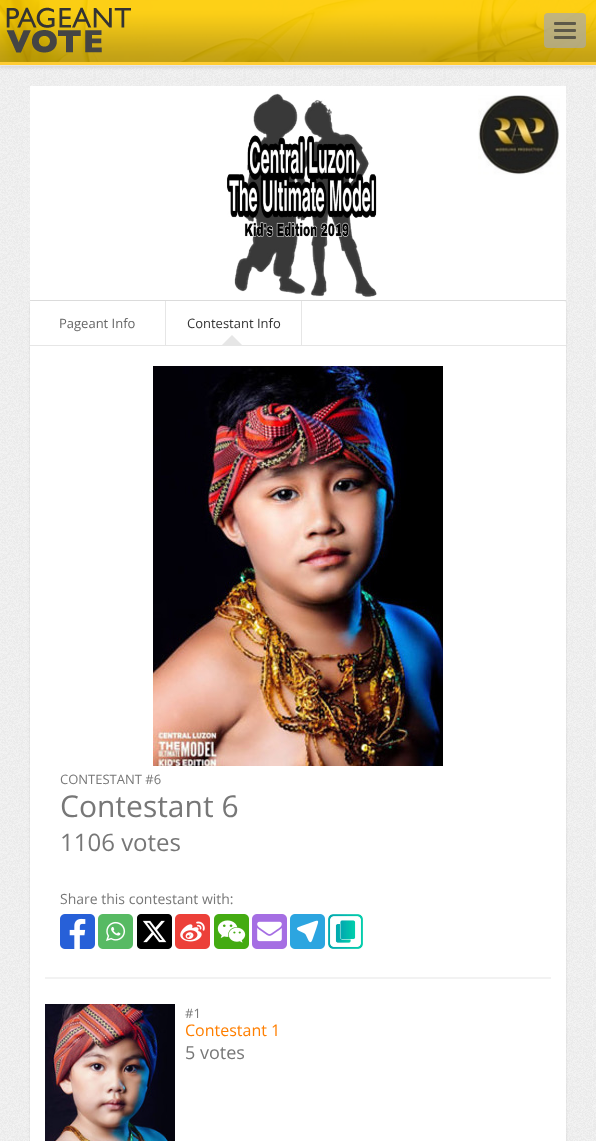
async function draw(canvas) {
  canvas.width = 596
  canvas.height = 1141
  const ctx = canvas.getContext('2d')
  ctx.miterLimit = 4
  ctx.fontKerning = 'normal'
  async function loadImage(src) {
    const img = new Image()
    img.src = src
    await img.decode()
    return img
  }

  ctx.fillStyle = '#fff'
  ctx.fillRect(0, 0, 596, 1141)
  ctx.drawImage(await loadImage('image0.png'), 0, 66, 596, 1075)
  ctx.fillStyle = '#cccccca6'
  ctx.filter = 'blur(1.5px)'
  ctx.beginPath()
  ctx.rect(0, 2, 596, 66)
  ctx.fill()
  ctx.filter = 'none'
  ctx.drawImage(await loadImage('image1.png'), 0, 0, 596, 65)
  ctx.fillStyle = '#e7e7e7'
  ctx.fillRect(0, 65, 596, 1)
  ctx.drawImage(await loadImage('image2.png'), 6, 7, 125, 46)
  ctx.fillStyle = '#aaaaaab3'
  ctx.beginPath()
  ctx.roundRect(544, 13, 42, 35, 4)
  ctx.fill()
  ctx.fillStyle = '#333333b3'
  ctx.beginPath()
  ctx.roundRect(554, 22, 22, 3, 1)
  ctx.fill()
  ctx.fillStyle = '#5c5849'
  ctx.beginPath()
  ctx.roundRect(554, 29, 22, 3, 1)
  ctx.fill()
  ctx.fillStyle = '#333333b3'
  ctx.beginPath()
  ctx.roundRect(554, 36, 22, 3, 1)
  ctx.fill()
  ctx.fillStyle = '#ddd'
  ctx.fillRect(30, 300, 536, 1)
  ctx.drawImage(await loadImage('image3.png'), 30, 86, 536, 214)
  ctx.fillStyle = '#0000001a'
  ctx.filter = 'blur(1px)'
  ctx.beginPath()
  ctx.roundRect(30, 302, 536, 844, 2)
  ctx.fill()
  ctx.filter = 'none'
  ctx.fillStyle = '#fff'
  ctx.beginPath()
  ctx.roundRect(30, 301, 536, 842, 2)
  ctx.fill()
  ctx.fillStyle = '#e6e6e6'
  ctx.fillRect(30, 345, 536, 1)
  ctx.fillRect(165, 301, 1, 44)
  ctx.fillStyle = '#fff'
  ctx.fillRect(30, 301, 2, 1)
  ctx.font = '13px Open Sans'
  ctx.fillStyle = '#666'
  ctx.fillText('Pageant Info', 59, 328)
  ctx.fillStyle = '#e6e6e6'
  ctx.fillRect(301, 301, 1, 44)
  ctx.fillStyle = '#333'
  ctx.fillText('Contestant Info', 187, 328)
  ctx.fillStyle = '#e6e6e6'
  ctx.beginPath()
  ctx.moveTo(242, 345)
  ctx.lineTo(222, 345)
  ctx.lineTo(232, 335)
  ctx.closePath()
  ctx.fill()
  ctx.drawImage(await loadImage('image4.png'), 153, 366, 290, 400)
  ctx.fillStyle = '#777'
  ctx.fillText('CONTESTANT #6', 60, 784)
  ctx.font = '30px Open Sans'
  ctx.fillText('Contestant 6', 60, 817)
  ctx.font = '24px Open Sans'
  ctx.fillText('1106 votes', 60, 851)
  ctx.font = '14px Open Sans'
  ctx.fillText('Share this contestant with:', 60, 904)
  ctx.drawImage(await loadImage('image5.png'), 60, 914, 35, 35)
  ctx.drawImage(await loadImage('image6.png'), 98, 914, 35, 35)
  ctx.drawImage(await loadImage('image7.png'), 137, 914, 35, 35)
  ctx.drawImage(await loadImage('image8.png'), 175, 914, 35, 35)
  ctx.drawImage(await loadImage('image9.png'), 214, 914, 35, 35)
  ctx.drawImage(await loadImage('image10.png'), 252, 914, 35, 35)
  ctx.drawImage(await loadImage('image11.png'), 290, 914, 35, 35)
  ctx.drawImage(await loadImage('image12.png'), 328, 914, 35, 35)
  ctx.fillStyle = '#f2f2f2'
  ctx.fillRect(45, 977, 506, 2)
  ctx.drawImage(await loadImage('image13.png'), 45, 1004, 130, 137)
  ctx.font = '13px Open Sans'
  ctx.fillStyle = '#777'
  ctx.fillText('#1', 185, 1018)
  ctx.font = '16px Open Sans'
  ctx.fillStyle = '#ff7f00'
  ctx.fillText('Contestant 1', 185, 1036)
  ctx.font = '18px Open Sans'
  ctx.fillStyle = '#777'
  ctx.fillText('5 votes', 185, 1059)
}

draw(document.querySelector('canvas'))
